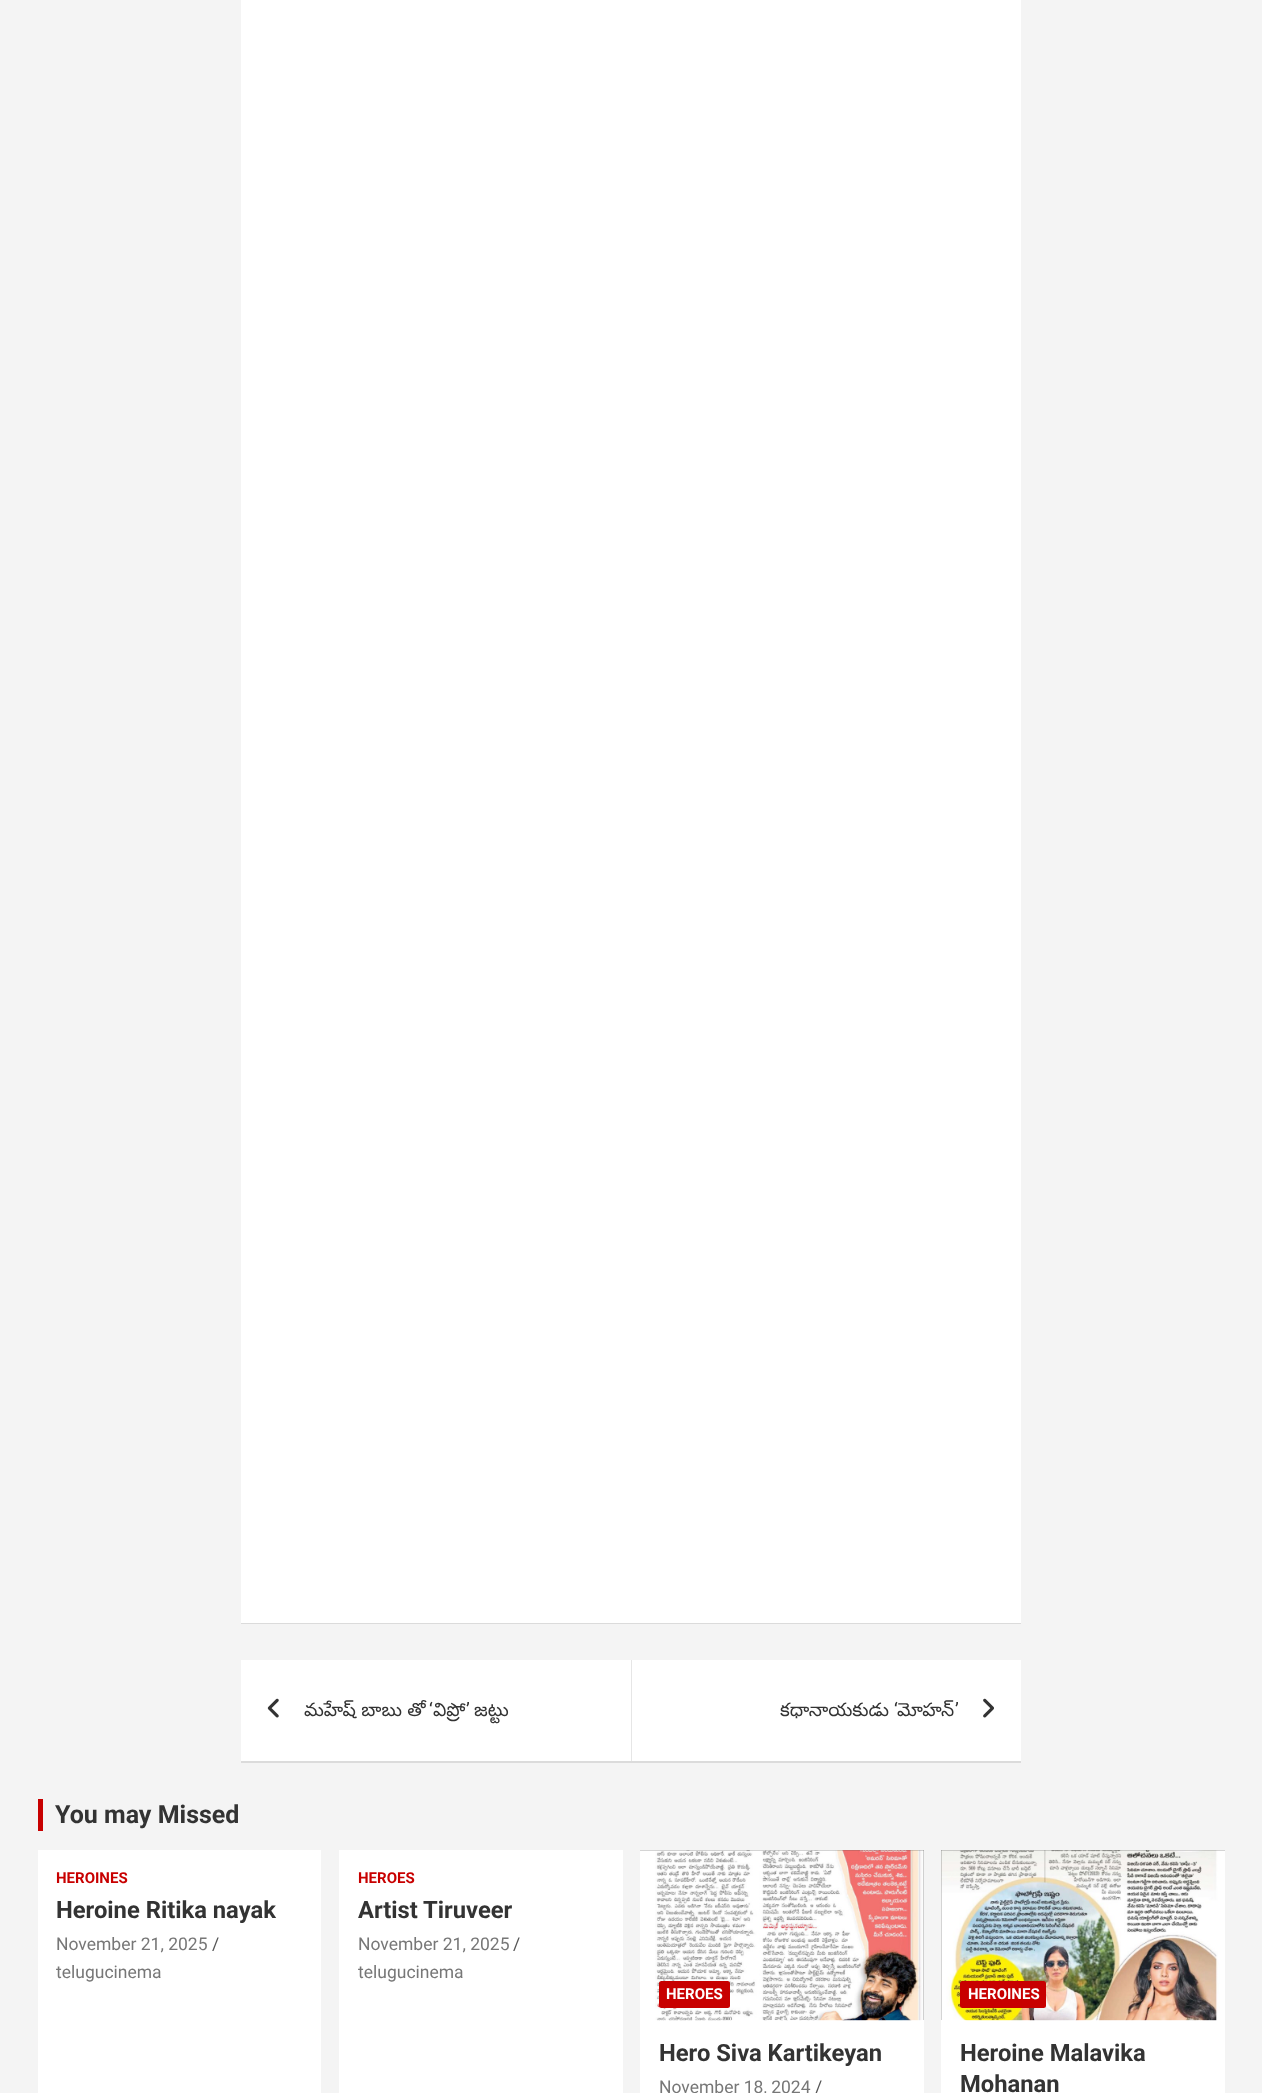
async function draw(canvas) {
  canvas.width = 1262
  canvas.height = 2093
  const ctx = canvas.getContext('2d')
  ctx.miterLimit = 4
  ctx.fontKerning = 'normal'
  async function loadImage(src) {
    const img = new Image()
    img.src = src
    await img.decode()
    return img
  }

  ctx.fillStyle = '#f4f4f4'
  ctx.fillRect(0, 0, 1262, 2093)
  ctx.fillStyle = '#0000001a'
  ctx.filter = 'blur(0.5px)'
  ctx.beginPath()
  ctx.rect(241, -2, 780, 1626)
  ctx.fill()
  ctx.filter = 'none'
  ctx.fillStyle = '#fff'
  ctx.fillRect(241, 0, 780, 1623)
  ctx.fillStyle = '#0000001a'
  ctx.filter = 'blur(0.5px)'
  ctx.beginPath()
  ctx.rect(241, 1661, 780, 102)
  ctx.fill()
  ctx.filter = 'none'
  ctx.fillStyle = '#fff'
  ctx.fillRect(241, 1660, 780, 101)
  ctx.drawImage(await loadImage('image0.png'), 267, 1698, 12, 20)
  ctx.font = '18.75px Noto Sans Telugu'
  ctx.fillStyle = '#333'
  ctx.fillText('మహేష్ బాబు తో', 304, 1716)
  ctx.font = '18.75px Roboto'
  ctx.fillText('‘', 429, 1716)
  ctx.fillText('’', 466, 1716)
  ctx.font = '18.75px Noto Sans Telugu'
  ctx.fillText('విప్రో', 433, 1716)
  ctx.fillText('జట్టు', 474, 1716)
  ctx.fillStyle = '#e6e6e6'
  ctx.fillRect(631, 1660, 1, 101)
  ctx.fillStyle = '#333'
  ctx.fillText('కధానాయకుడు', 780, 1716)
  ctx.font = '18.75px Roboto'
  ctx.fillText('‘', 894, 1716)
  ctx.font = '18.75px Noto Sans Telugu'
  ctx.fillText('మోహన్', 897, 1716)
  ctx.font = '18.75px Roboto'
  ctx.fillText('’', 955, 1716)
  ctx.drawImage(await loadImage('image1.png'), 983, 1698, 11, 20)
  ctx.fillStyle = '#c80000'
  ctx.fillRect(38, 1799, 5, 32)
  ctx.font = 'bold 25px Roboto'
  ctx.fillStyle = '#333'
  ctx.fillText('You may Missed', 55, 1823)
  ctx.fillStyle = '#fff'
  ctx.fillRect(38, 1850, 283, 243)
  ctx.font = 'bold 15px Roboto'
  ctx.fillStyle = '#c80000'
  ctx.fillText('HEROINES', 56, 1883)
  ctx.font = 'bold 23.75px Roboto'
  ctx.fillStyle = '#333'
  ctx.fillText('Heroine Ritika nayak', 56, 1918)
  ctx.font = '17.5px Roboto'
  ctx.fillStyle = '#777'
  ctx.fillText('November 21, 2025', 56, 1950)
  ctx.fillStyle = '#555'
  ctx.fillText('/', 212, 1950)
  ctx.fillStyle = '#777'
  ctx.fillText('telugucinema', 56, 1978)
  ctx.fillStyle = '#fff'
  ctx.fillRect(339, 1850, 284, 243)
  ctx.font = 'bold 15px Roboto'
  ctx.fillStyle = '#c80000'
  ctx.fillText('HEROES', 358, 1883)
  ctx.font = 'bold 23.75px Roboto'
  ctx.fillStyle = '#333'
  ctx.fillText('Artist Tiruveer', 358, 1918)
  ctx.font = '17.5px Roboto'
  ctx.fillStyle = '#777'
  ctx.fillText('November 21, 2025', 358, 1950)
  ctx.fillStyle = '#555'
  ctx.fillText('/', 513, 1950)
  ctx.fillStyle = '#777'
  ctx.fillText('telugucinema', 358, 1978)
  ctx.fillStyle = '#fff'
  ctx.fillRect(640, 2020, 284, 73)
  ctx.fillStyle = '#555'
  ctx.fillRect(640, 1850, 284, 170)
  ctx.drawImage(await loadImage('image2.png'), 640, 1850, 284, 171)
  ctx.fillStyle = '#c80000'
  ctx.beginPath()
  ctx.roundRect(659, 1981, 71, 27, 2.5)
  ctx.fill()
  ctx.font = 'bold 15px Roboto'
  ctx.fillStyle = '#fff'
  ctx.fillText('HEROES', 666, 1999)
  ctx.font = 'bold 23.75px Roboto'
  ctx.fillStyle = '#333'
  ctx.fillText('Hero Siva Kartikeyan', 659, 2061)
  ctx.font = '17.5px Roboto'
  ctx.fillStyle = '#777'
  ctx.fillText('November 18, 2024', 659, 2093)
  ctx.fillStyle = '#555'
  ctx.fillText('/', 815, 2093)
  ctx.fillStyle = '#fff'
  ctx.fillRect(941, 2020, 284, 73)
  ctx.fillStyle = '#555'
  ctx.fillRect(941, 1850, 284, 170)
  ctx.drawImage(await loadImage('image3.png'), 941, 1850, 284, 171)
  ctx.fillStyle = '#c80000'
  ctx.beginPath()
  ctx.roundRect(960, 1981, 86, 27, 2.5)
  ctx.fill()
  ctx.font = 'bold 15px Roboto'
  ctx.fillStyle = '#fff'
  ctx.fillText('HEROINES', 968, 1999)
  ctx.font = 'bold 23.75px Roboto'
  ctx.fillStyle = '#333'
  ctx.fillText('Heroine Malavika', 960, 2061)
  ctx.fillText('Mohanan', 960, 2092)
}

draw(document.querySelector('canvas'))
